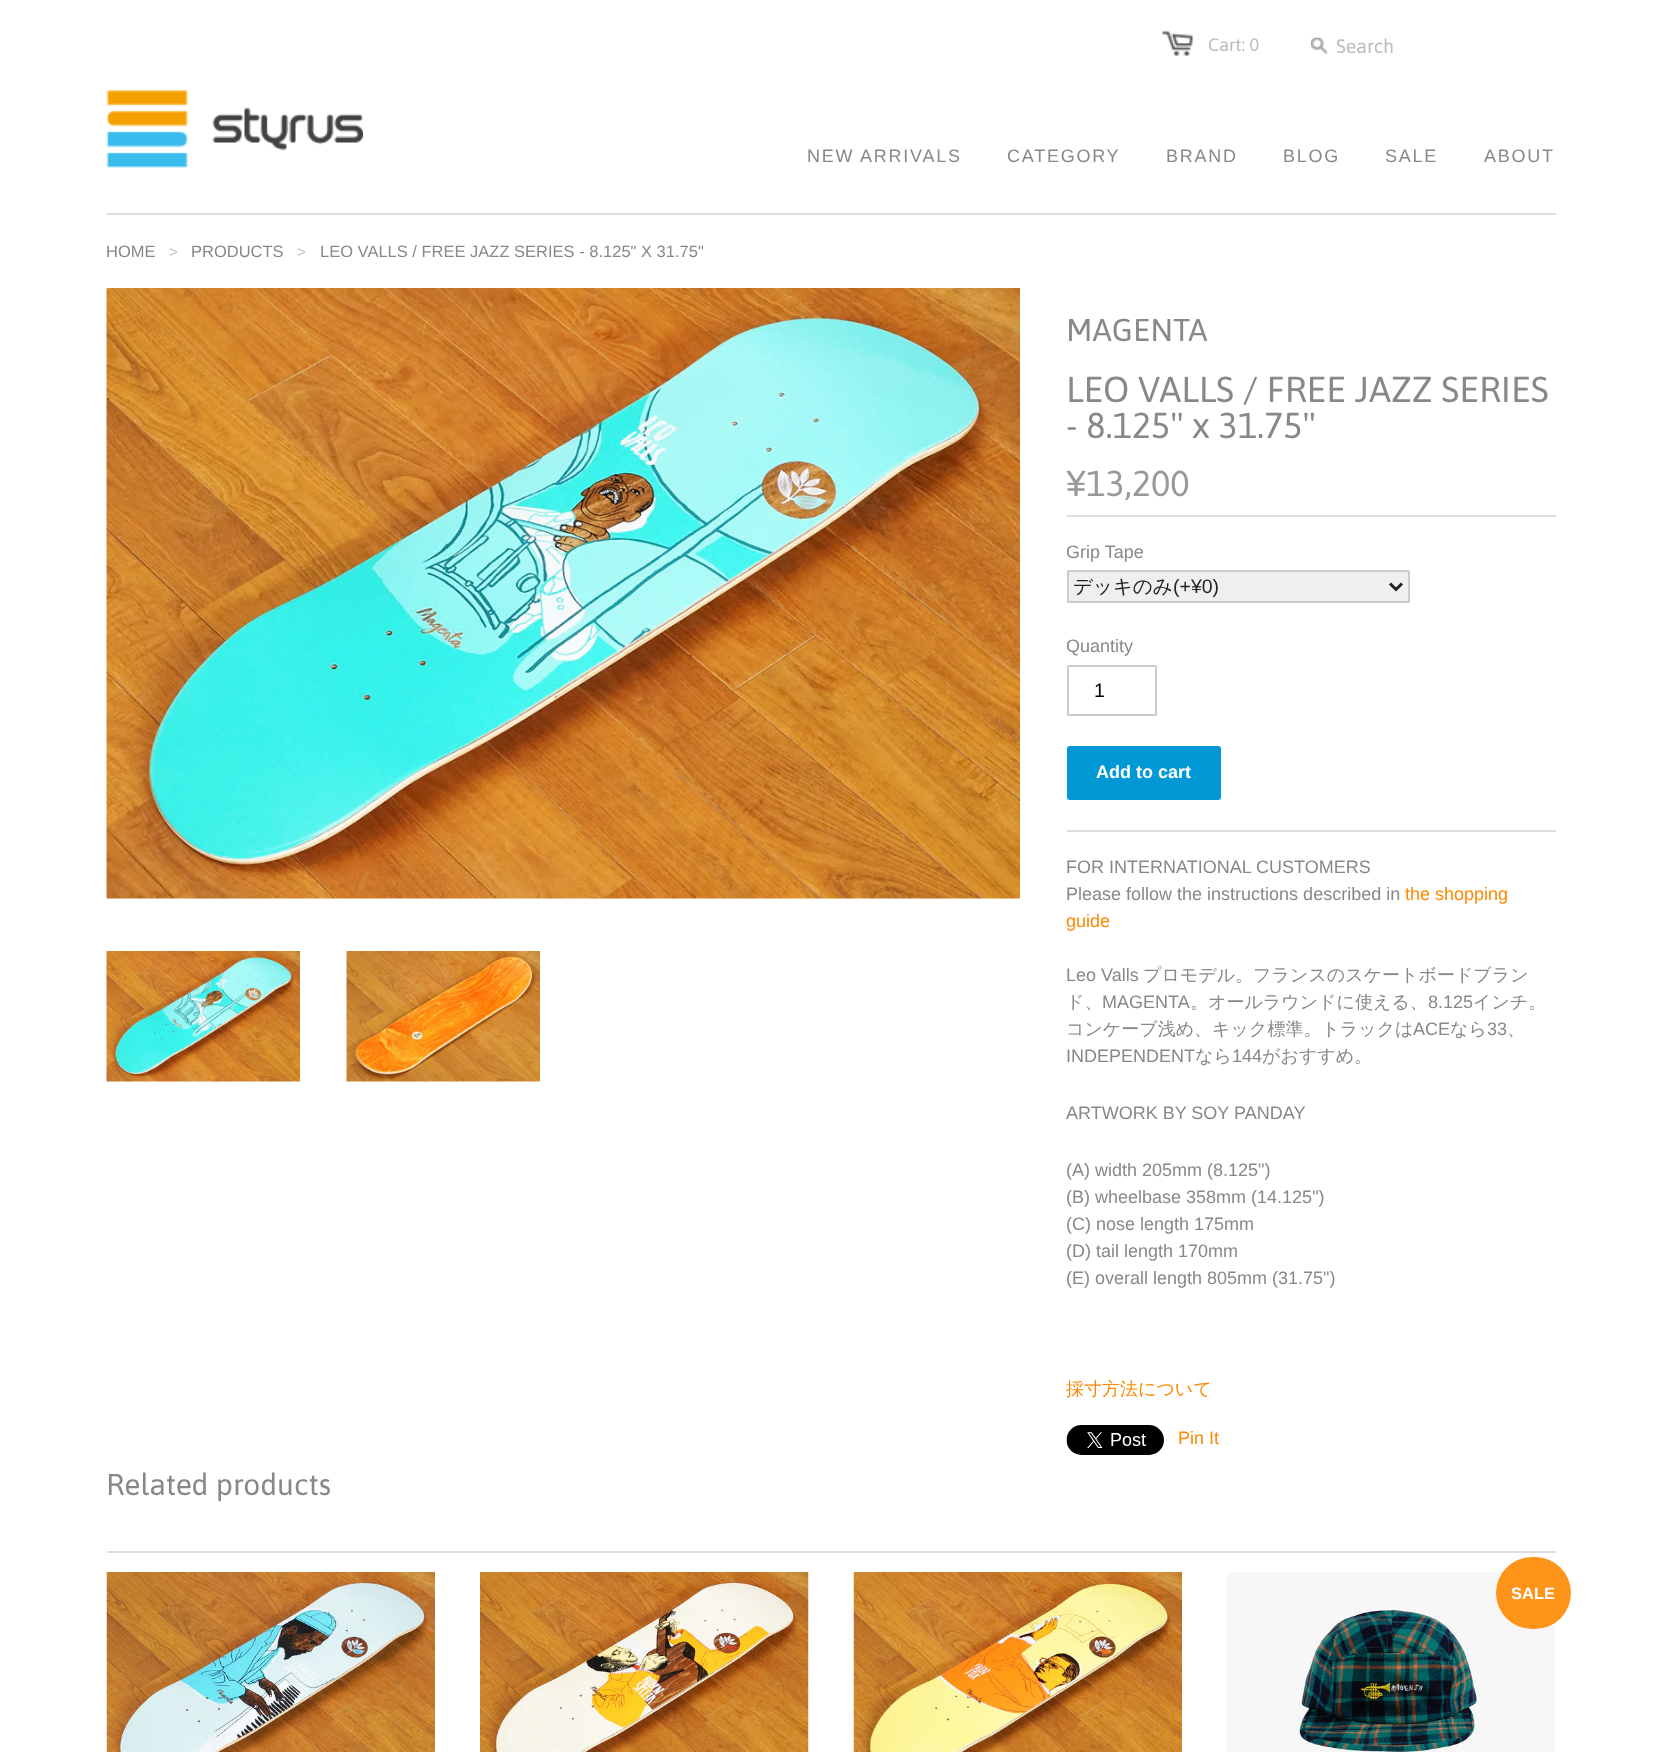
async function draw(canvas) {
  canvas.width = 1660
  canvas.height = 1752
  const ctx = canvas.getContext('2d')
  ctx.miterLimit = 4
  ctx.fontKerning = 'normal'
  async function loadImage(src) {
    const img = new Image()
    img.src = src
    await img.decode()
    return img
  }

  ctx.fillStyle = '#fff'
  ctx.fillRect(0, 0, 1660, 1752)
  ctx.drawImage(await loadImage('image0.png'), 1162, 31, 31, 25)
  ctx.font = '18px Asap'
  ctx.fillStyle = '#bbb'
  ctx.fillText('Cart: 0', 1208, 51)
  ctx.drawImage(await loadImage('image1.png'), 1311, 37, 17, 17)
  ctx.save()
  ctx.beginPath()
  ctx.rect(1337, 35, 204, 22)
  ctx.clip()
  ctx.font = '19.5px Asap'
  ctx.fillText('Search', 1336, 53)
  ctx.restore()
  ctx.fillStyle = '#ddd'
  ctx.fillRect(107, 213, 1449, 2)
  ctx.drawImage(await loadImage('image2.png'), 106, 90, 257, 78)
  ctx.letterSpacing = '1.75px'
  ctx.font = '18px Liberation Sans'
  ctx.fillStyle = '#888'
  ctx.fillText('NEW ARRIVALS', 807, 162)
  ctx.fillText('CATEGORY', 1007, 162)
  ctx.fillText('BRAND', 1166, 162)
  ctx.fillText('BLOG', 1283, 162)
  ctx.fillText('SALE', 1385, 162)
  ctx.fillText('ABOUT', 1484, 162)
  ctx.letterSpacing = '0px'
  ctx.font = '16.5px Liberation Sans'
  ctx.fillText('HOME', 106, 257)
  ctx.font = '15px Liberation Sans'
  ctx.fillStyle = '#c4c4c4'
  ctx.fillText('>', 169, 257)
  ctx.font = '16.5px Liberation Sans'
  ctx.fillStyle = '#888'
  ctx.fillText('PRODUCTS', 191, 257)
  ctx.font = '15px Liberation Sans'
  ctx.fillStyle = '#c4c4c4'
  ctx.fillText('>', 297, 257)
  ctx.font = '16.5px Liberation Sans'
  ctx.fillStyle = '#888'
  ctx.fillText('LEO VALLS / FREE JAZZ SERIES - 8.125" X 31.75"', 320, 257)
  ctx.drawImage(await loadImage('image3.png'), 106, 288, 914, 611)
  ctx.drawImage(await loadImage('image4.png'), 106, 951, 194, 131)
  ctx.drawImage(await loadImage('image5.png'), 346, 951, 194, 131)
  ctx.font = '31.5px Asap'
  ctx.fillText('MAGENTA', 1066, 341)
  ctx.font = '36px Asap'
  ctx.fillText('LEO VALLS / FREE JAZZ SERIES', 1066, 402)
  ctx.fillText('- 8.125" x 31.75"', 1066, 438)
  ctx.fillStyle = '#999'
  ctx.fillText('¥13,200', 1066, 496)
  ctx.fillStyle = '#ddd'
  ctx.fillRect(1067, 515, 489, 2)
  ctx.fillRect(1067, 830, 489, 2)
  ctx.font = '18px Liberation Sans'
  ctx.fillStyle = '#888'
  ctx.fillText('Grip Tape', 1066, 558)
  ctx.fillStyle = '#efefef'
  ctx.beginPath()
  ctx.roundRect(1068, 571, 341, 31, 0.5)
  ctx.fill()
  ctx.strokeStyle = '#ccc'
  ctx.lineWidth = 2
  ctx.stroke()
  ctx.beginPath()
  ctx.moveTo(1390, 583.5)
  ctx.lineTo(1396, 589.5)
  ctx.lineTo(1402, 583.5)
  ctx.strokeStyle = '#222'
  ctx.lineWidth = 3
  ctx.stroke()
  ctx.font = '500 19.5px WenQuanYi Zen Hei'
  ctx.fillStyle = '#222'
  ctx.fillText('デッキのみ', 1073, 593)
  ctx.font = '19.5px Liberation Sans'
  ctx.fillText('(+¥0)', 1173, 593)
  ctx.font = '18px Liberation Sans'
  ctx.fillStyle = '#888'
  ctx.fillText('Quantity', 1066, 652)
  ctx.beginPath()
  ctx.roundRect(1068, 666, 88, 49, 0.5)
  ctx.strokeStyle = '#ccc'
  ctx.lineWidth = 2
  ctx.stroke()
  ctx.font = '19.5px Liberation Sans'
  ctx.fillStyle = '#000'
  ctx.fillText('1', 1094, 697)
  ctx.fillStyle = '#0099d5'
  ctx.beginPath()
  ctx.roundRect(1067, 746, 154, 54, 3)
  ctx.fill()
  ctx.font = 'bold 18px Liberation Sans'
  ctx.fillStyle = '#fff'
  ctx.fillText('Add to cart', 1096, 778)
  ctx.font = '18px Liberation Sans'
  ctx.fillStyle = '#888'
  ctx.fillText('FOR INTERNATIONAL CUSTOMERS', 1066, 873)
  ctx.fillText('Please follow the instructions described in', 1066, 900)
  ctx.fillStyle = '#fe8800'
  ctx.fillText('the shopping', 1405, 900)
  ctx.fillText('guide', 1066, 927)
  ctx.fillStyle = '#888'
  ctx.fillText('Leo Valls', 1066, 981)
  ctx.font = '500 18px WenQuanYi Zen Hei'
  ctx.fillText('プロモデル。フランスのスケートボードブラン', 1143, 981)
  ctx.fillText('ド、', 1066, 1008)
  ctx.font = '18px Liberation Sans'
  ctx.fillText('MAGENTA', 1102, 1008)
  ctx.font = '500 18px WenQuanYi Zen Hei'
  ctx.fillText('。オールラウンドに使える、', 1190, 1008)
  ctx.font = '18px Liberation Sans'
  ctx.fillText('8.125', 1428, 1008)
  ctx.font = '500 18px WenQuanYi Zen Hei'
  ctx.fillText('インチ。', 1473, 1008)
  ctx.fillText('コンケーブ浅め、キック標準。トラックは', 1066, 1035)
  ctx.font = '18px Liberation Sans'
  ctx.fillText('ACE', 1413, 1035)
  ctx.font = '500 18px WenQuanYi Zen Hei'
  ctx.fillText('なら', 1450, 1035)
  ctx.font = '18px Liberation Sans'
  ctx.fillText('33', 1487, 1035)
  ctx.font = '500 18px WenQuanYi Zen Hei'
  ctx.fillText('、', 1507, 1035)
  ctx.font = '18px Liberation Sans'
  ctx.fillText('INDEPENDENT', 1066, 1062)
  ctx.font = '500 18px WenQuanYi Zen Hei'
  ctx.fillText('なら', 1195, 1062)
  ctx.font = '18px Liberation Sans'
  ctx.fillText('144', 1232, 1062)
  ctx.font = '500 18px WenQuanYi Zen Hei'
  ctx.fillText('がおすすめ。', 1262, 1062)
  ctx.font = '18px Liberation Sans'
  ctx.fillText('ARTWORK BY SOY PANDAY', 1066, 1119)
  ctx.fillText('(A) width 205mm (8.125")', 1066, 1176)
  ctx.fillText('(B) wheelbase 358mm (14.125")', 1066, 1203)
  ctx.fillText('(C) nose length 175mm', 1066, 1230)
  ctx.fillText('(D) tail length 170mm', 1066, 1257)
  ctx.fillText('(E) overall length 805mm (31.75")', 1066, 1284)
  ctx.font = '500 18px WenQuanYi Zen Hei'
  ctx.fillStyle = '#fe8800'
  ctx.fillText('採寸方法について', 1066, 1395)
  ctx.drawImage(await loadImage('image6.png'), 1066, 1425, 98, 30)
  ctx.font = '18px Liberation Sans'
  ctx.fillText('Pin It', 1178, 1444)
  ctx.fillStyle = '#ddd'
  ctx.fillRect(107, 1551, 1449, 2)
  ctx.font = '30px Asap'
  ctx.fillStyle = '#888'
  ctx.fillText('Related products', 106, 1495)
  ctx.drawImage(await loadImage('image7.png'), 106, 1572, 329, 180)
  ctx.drawImage(await loadImage('image8.png'), 480, 1572, 329, 180)
  ctx.drawImage(await loadImage('image9.png'), 853, 1572, 329, 180)
  ctx.drawImage(await loadImage('image10.png'), 1227, 1572, 328, 180)
  ctx.fillStyle = '#fe8800e6'
  ctx.beginPath()
  ctx.roundRect(1496, 1557, 75, 72, 36)
  ctx.fill()
  ctx.font = 'bold 16.5px Liberation Sans'
  ctx.fillStyle = '#fff'
  ctx.fillText('SALE', 1511, 1599)
}

draw(document.querySelector('canvas'))
